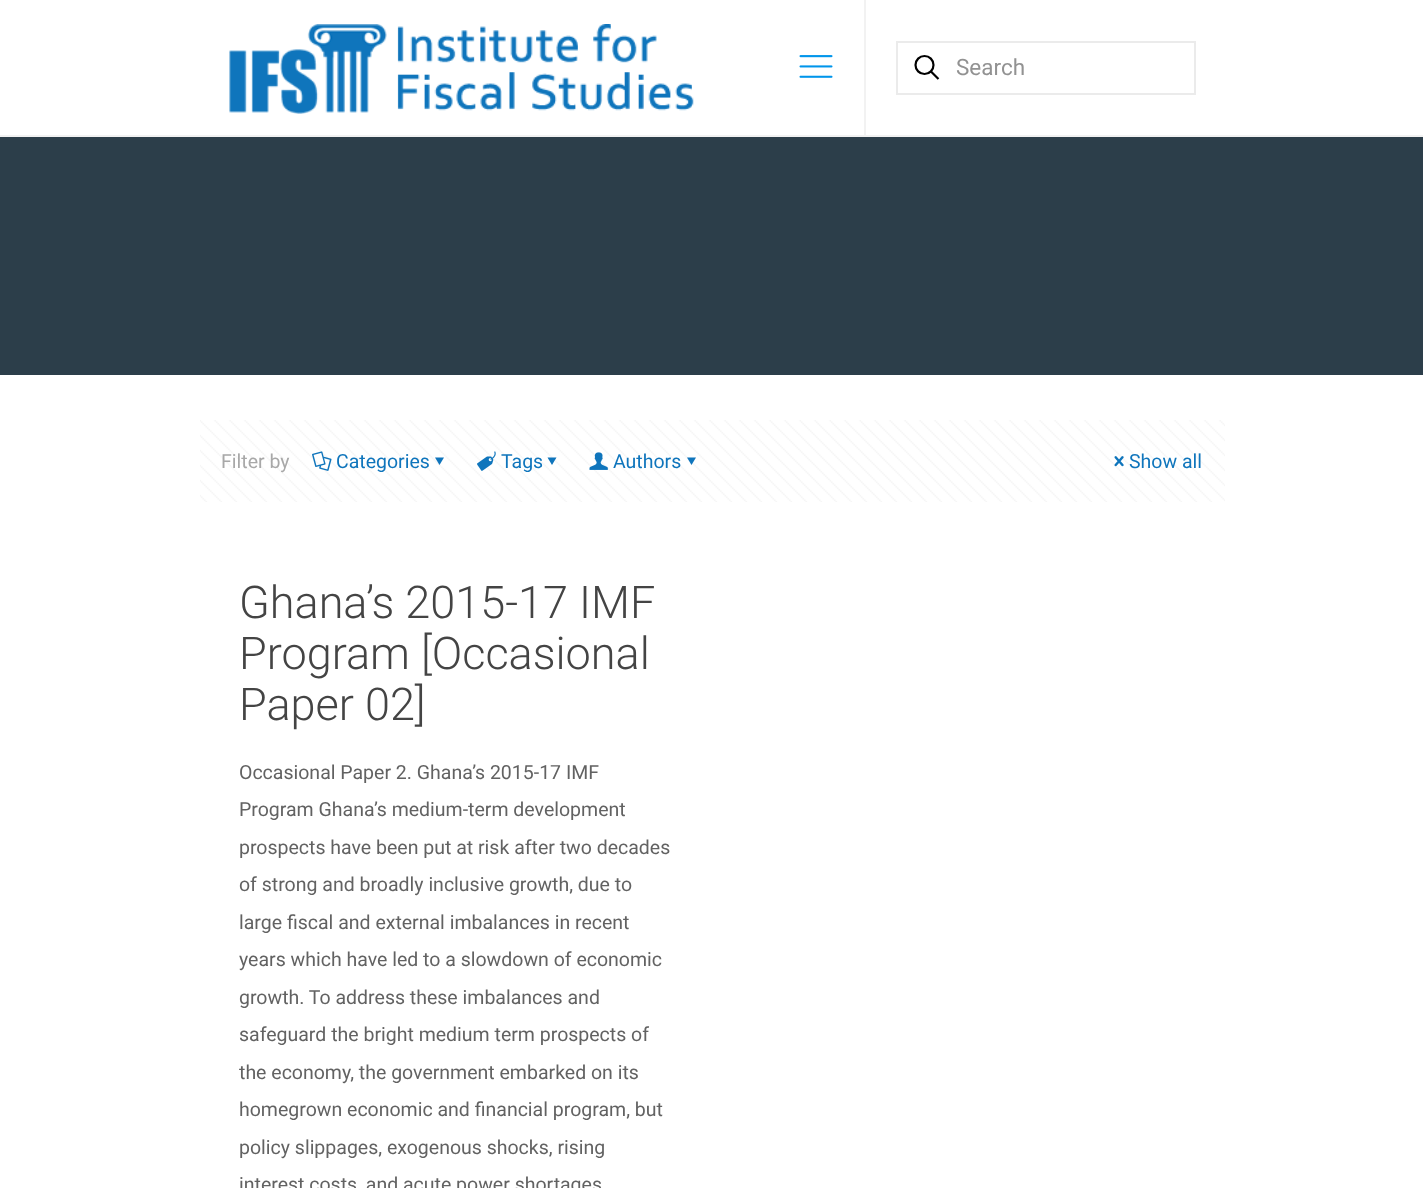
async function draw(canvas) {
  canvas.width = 1423
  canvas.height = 1188
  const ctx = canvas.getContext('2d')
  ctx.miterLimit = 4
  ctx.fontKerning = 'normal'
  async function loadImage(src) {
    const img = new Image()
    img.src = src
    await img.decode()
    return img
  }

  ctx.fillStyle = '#fff'
  ctx.fillRect(0, 0, 1423, 1188)
  ctx.fillStyle = '#2c3e4a'
  ctx.fillRect(0, 137, 1423, 238)
  ctx.fillStyle = '#f2f2f2'
  ctx.fillRect(0, 135, 1423, 2)
  ctx.drawImage(await loadImage('image0.png'), 229, 24, 465, 90)
  ctx.drawImage(await loadImage('image1.png'), 799, 55, 34, 23)
  ctx.fillRect(864, 0, 2, 135)
  ctx.strokeStyle = '#ebebeb'
  ctx.lineWidth = 2
  ctx.strokeRect(897, 42, 298, 52)
  ctx.beginPath()
  ctx.arc(924.5, 65, 9, 0, 2 * Math.PI)
  ctx.strokeStyle = '#000'
  ctx.lineWidth = 2.2
  ctx.stroke()
  ctx.beginPath()
  ctx.moveTo(931, 71.5)
  ctx.lineTo(938.5, 79)
  ctx.stroke()
  ctx.font = '22.5px Roboto'
  ctx.fillStyle = '#929292'
  ctx.fillText('Search', 956, 75)
  ctx.drawImage(await loadImage('image2.png'), 200, 420, 1025, 82)
  ctx.font = '19.5px Roboto'
  ctx.fillStyle = '#a8a8a8'
  ctx.fillText('Filter by', 221, 468)
  ctx.drawImage(await loadImage('image3.png'), 312, 451, 20, 20)
  ctx.fillStyle = '#0f75bc'
  ctx.fillText('Categories', 336, 468)
  ctx.beginPath()
  ctx.moveTo(444, 457.5)
  ctx.lineTo(439.5, 465)
  ctx.lineTo(435, 457.5)
  ctx.closePath()
  ctx.fill()
  ctx.drawImage(await loadImage('image4.png'), 477, 451, 19, 20)
  ctx.fillText('Tags', 501, 468)
  ctx.beginPath()
  ctx.moveTo(556.5, 457.5)
  ctx.lineTo(552, 465)
  ctx.lineTo(547.5, 457.5)
  ctx.closePath()
  ctx.fill()
  ctx.drawImage(await loadImage('image5.png'), 589, 452, 19, 18)
  ctx.fillText('Authors', 613, 468)
  ctx.beginPath()
  ctx.moveTo(696, 457.5)
  ctx.lineTo(691.5, 465)
  ctx.lineTo(687, 457.5)
  ctx.closePath()
  ctx.fill()
  ctx.drawImage(await loadImage('image6.png'), 1114, 456, 10, 11)
  ctx.fillText('Show all', 1129, 468)
  ctx.font = '300 45px Roboto'
  ctx.fillStyle = '#444'
  ctx.fillText('Ghana’s 2015-17 IMF', 239, 618)
  ctx.fillText('Program [Occasional', 239, 669)
  ctx.fillText('Paper 02]', 239, 720)
  ctx.font = '19.5px Roboto'
  ctx.fillStyle = '#626262'
  ctx.fillText('Occasional Paper 2. Ghana’s 2015-17 IMF', 239, 779)
  ctx.fillText('Program Ghana’s medium-term development', 239, 816)
  ctx.fillText('prospects have been put at risk after two decades', 239, 854)
  ctx.fillText('of strong and broadly inclusive growth, due to', 239, 891)
  ctx.fillText('large fiscal and external imbalances in recent', 239, 929)
  ctx.fillText('years which have led to a slowdown of economic', 239, 966)
  ctx.fillText('growth. To address these imbalances and', 239, 1004)
  ctx.fillText('safeguard the bright medium term prospects of', 239, 1041)
  ctx.fillText('the economy, the government embarked on its', 239, 1079)
  ctx.fillText('homegrown economic and financial program, but', 239, 1116)
  ctx.fillText('policy slippages, exogenous shocks, rising', 239, 1154)
  ctx.fillText('interest costs, and acute power shortages', 239, 1191)
}

draw(document.querySelector('canvas'))
